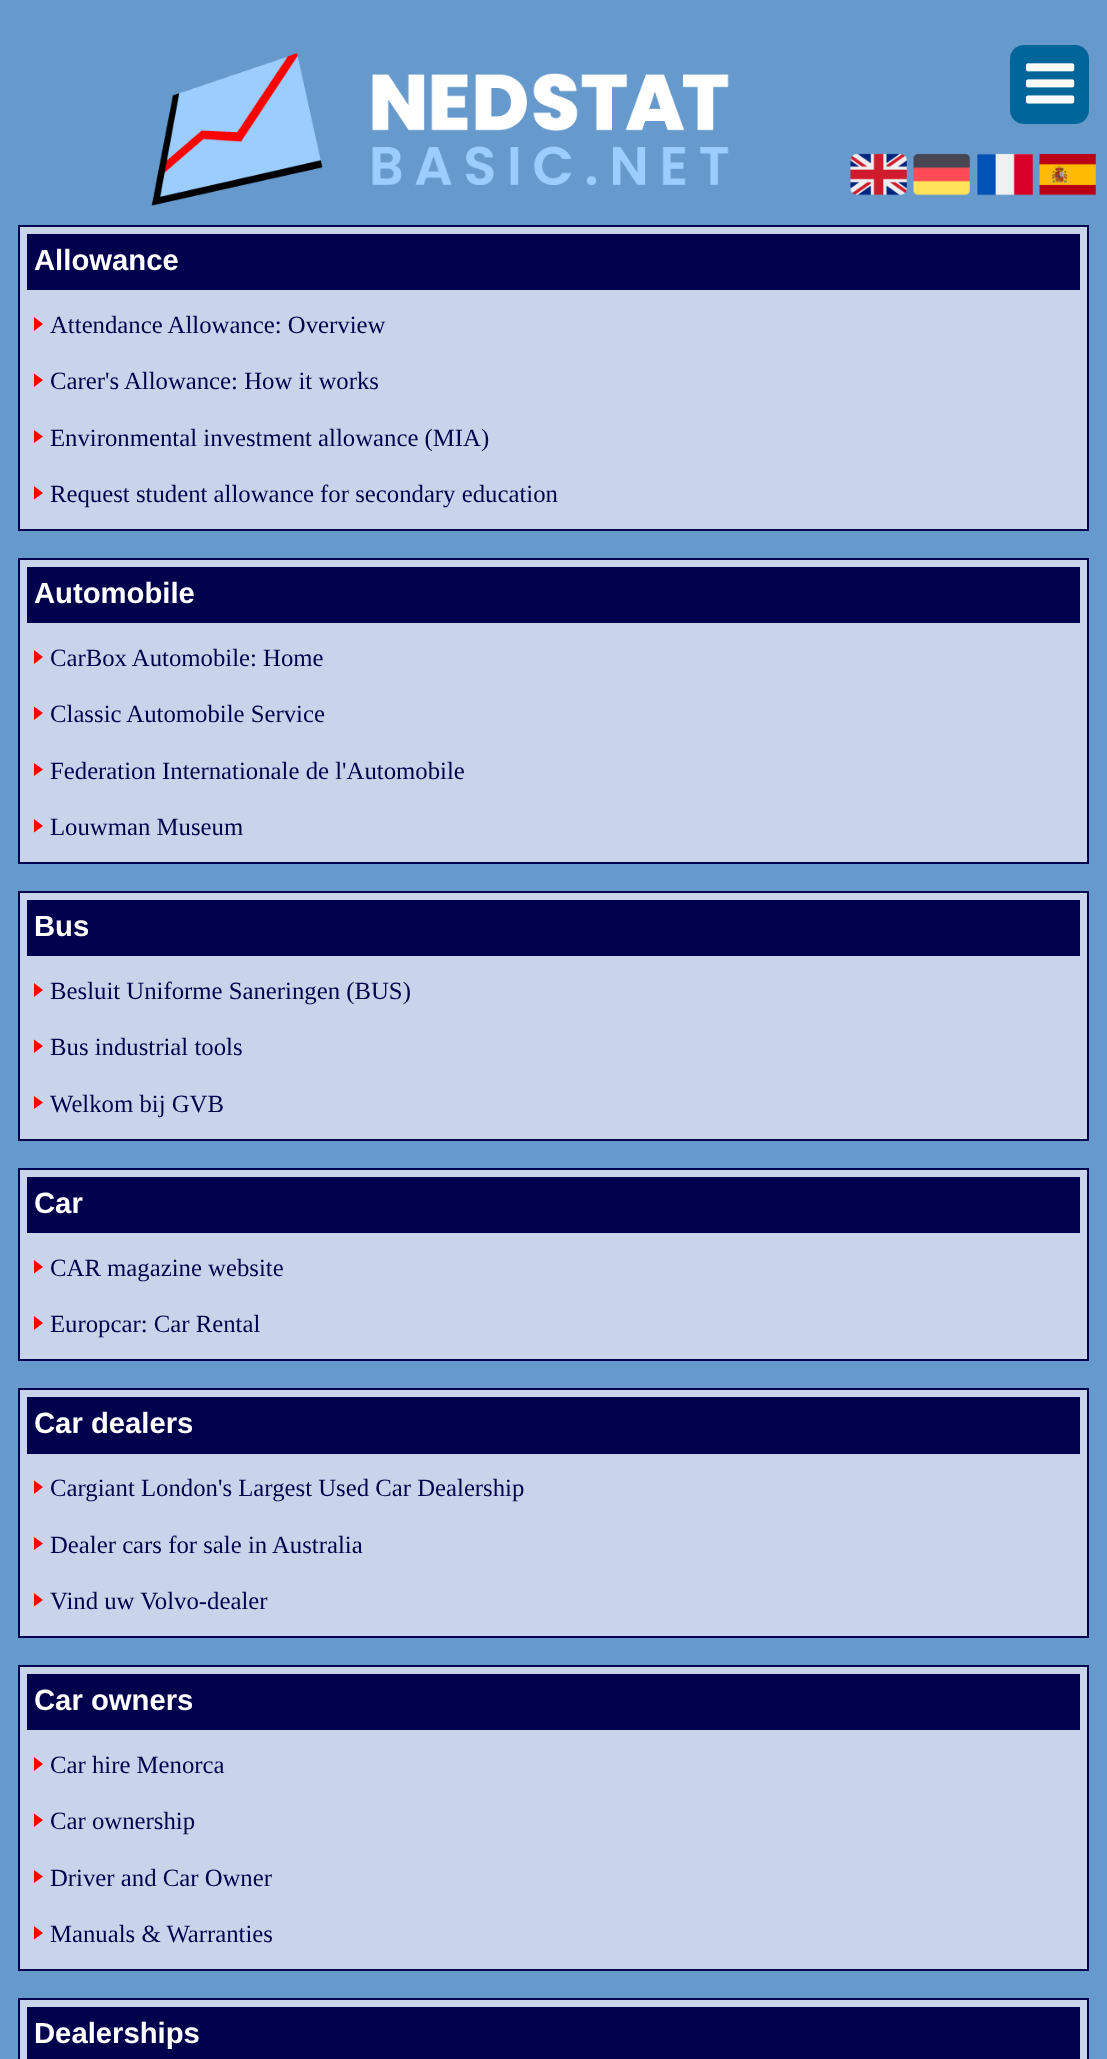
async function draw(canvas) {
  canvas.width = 1107
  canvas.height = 2059
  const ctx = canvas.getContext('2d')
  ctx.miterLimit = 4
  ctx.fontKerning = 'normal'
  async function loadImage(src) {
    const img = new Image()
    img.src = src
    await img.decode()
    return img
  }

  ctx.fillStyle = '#69c'
  ctx.fillRect(0, 0, 1107, 2059)
  ctx.drawImage(await loadImage('image0.png'), 151, 53, 578, 153)
  ctx.fillStyle = '#069'
  ctx.beginPath()
  ctx.roundRect(1010, 45, 79, 79, 14)
  ctx.fill()
  ctx.drawImage(await loadImage('image1.png'), 1026, 63, 49, 41)
  ctx.drawImage(await loadImage('image2.png'), 850, 153, 57, 43)
  ctx.drawImage(await loadImage('image3.png'), 913, 153, 57, 43)
  ctx.drawImage(await loadImage('image4.png'), 976, 153, 57, 43)
  ctx.drawImage(await loadImage('image5.png'), 1039, 153, 57, 43)
  ctx.fillStyle = '#c9d3e9'
  ctx.beginPath()
  ctx.rect(19, 226, 1069, 304)
  ctx.fill()
  ctx.strokeStyle = '#00004d'
  ctx.lineWidth = 2
  ctx.stroke()
  ctx.fillStyle = '#00004d'
  ctx.fillRect(27, 234, 1053, 56)
  ctx.font = 'bold 29.25px Liberation Sans'
  ctx.fillStyle = '#fff'
  ctx.fillText('Allowance', 34, 270)
  ctx.fillStyle = '#f00'
  ctx.beginPath()
  ctx.moveTo(34, 331)
  ctx.lineTo(34, 317)
  ctx.lineTo(43, 324)
  ctx.closePath()
  ctx.fill()
  ctx.font = '24.75px Liberation Serif'
  ctx.fillStyle = '#00004d'
  ctx.fillText('Attendance Allowance: Overview', 50, 333)
  ctx.fillStyle = '#f00'
  ctx.beginPath()
  ctx.moveTo(34, 387)
  ctx.lineTo(34, 373.5)
  ctx.lineTo(43, 380)
  ctx.closePath()
  ctx.fill()
  ctx.fillStyle = '#00004d'
  ctx.fillText('Carer\'s Allowance: How it works', 50, 389)
  ctx.fillStyle = '#f00'
  ctx.beginPath()
  ctx.moveTo(34, 443)
  ctx.lineTo(34, 430)
  ctx.lineTo(43, 436.5)
  ctx.closePath()
  ctx.fill()
  ctx.fillStyle = '#00004d'
  ctx.fillText('Environmental investment allowance (MIA)', 50, 446)
  ctx.fillStyle = '#f00'
  ctx.beginPath()
  ctx.moveTo(34, 499.5)
  ctx.lineTo(34, 486)
  ctx.lineTo(43, 493)
  ctx.closePath()
  ctx.fill()
  ctx.fillStyle = '#00004d'
  ctx.fillText('Request student allowance for secondary education', 50, 502)
  ctx.fillStyle = '#c9d3e9'
  ctx.beginPath()
  ctx.rect(19, 559, 1069, 304)
  ctx.fill()
  ctx.stroke()
  ctx.fillStyle = '#00004d'
  ctx.fillRect(27, 567, 1053, 56)
  ctx.font = 'bold 29.25px Liberation Sans'
  ctx.fillStyle = '#fff'
  ctx.fillText('Automobile', 34, 603)
  ctx.fillStyle = '#f00'
  ctx.beginPath()
  ctx.moveTo(34, 664)
  ctx.lineTo(34, 650)
  ctx.lineTo(43, 657)
  ctx.closePath()
  ctx.fill()
  ctx.font = '24.75px Liberation Serif'
  ctx.fillStyle = '#00004d'
  ctx.fillText('CarBox Automobile: Home', 50, 666)
  ctx.fillStyle = '#f00'
  ctx.beginPath()
  ctx.moveTo(34, 720)
  ctx.lineTo(34, 706.5)
  ctx.lineTo(43, 713)
  ctx.closePath()
  ctx.fill()
  ctx.fillStyle = '#00004d'
  ctx.fillText('Classic Automobile Service', 50, 722)
  ctx.fillStyle = '#f00'
  ctx.beginPath()
  ctx.moveTo(34, 776)
  ctx.lineTo(34, 763)
  ctx.lineTo(43, 769.5)
  ctx.closePath()
  ctx.fill()
  ctx.fillStyle = '#00004d'
  ctx.fillText('Federation Internationale de l\'Automobile', 50, 779)
  ctx.fillStyle = '#f00'
  ctx.beginPath()
  ctx.moveTo(34, 832.5)
  ctx.lineTo(34, 819)
  ctx.lineTo(43, 826)
  ctx.closePath()
  ctx.fill()
  ctx.fillStyle = '#00004d'
  ctx.fillText('Louwman Museum', 50, 835)
  ctx.fillStyle = '#c9d3e9'
  ctx.beginPath()
  ctx.rect(19, 892, 1069, 248)
  ctx.fill()
  ctx.stroke()
  ctx.fillStyle = '#00004d'
  ctx.fillRect(27, 900, 1053, 56)
  ctx.font = 'bold 29.25px Liberation Sans'
  ctx.fillStyle = '#fff'
  ctx.fillText('Bus', 34, 936)
  ctx.fillStyle = '#f00'
  ctx.beginPath()
  ctx.moveTo(34, 997)
  ctx.lineTo(34, 983)
  ctx.lineTo(43, 990)
  ctx.closePath()
  ctx.fill()
  ctx.font = '24.75px Liberation Serif'
  ctx.fillStyle = '#00004d'
  ctx.fillText('Besluit Uniforme Saneringen (BUS)', 50, 999)
  ctx.fillStyle = '#f00'
  ctx.beginPath()
  ctx.moveTo(34, 1053)
  ctx.lineTo(34, 1039.5)
  ctx.lineTo(43, 1046)
  ctx.closePath()
  ctx.fill()
  ctx.fillStyle = '#00004d'
  ctx.fillText('Bus industrial tools', 50, 1055)
  ctx.fillStyle = '#f00'
  ctx.beginPath()
  ctx.moveTo(34, 1109)
  ctx.lineTo(34, 1096)
  ctx.lineTo(43, 1102.5)
  ctx.closePath()
  ctx.fill()
  ctx.fillStyle = '#00004d'
  ctx.fillText('Welkom bij GVB', 50, 1112)
  ctx.fillStyle = '#c9d3e9'
  ctx.beginPath()
  ctx.rect(19, 1169, 1069, 191)
  ctx.fill()
  ctx.stroke()
  ctx.fillStyle = '#00004d'
  ctx.fillRect(27, 1177, 1053, 56)
  ctx.font = 'bold 29.25px Liberation Sans'
  ctx.fillStyle = '#fff'
  ctx.fillText('Car', 34, 1213)
  ctx.fillStyle = '#f00'
  ctx.beginPath()
  ctx.moveTo(34, 1273.5)
  ctx.lineTo(34, 1260)
  ctx.lineTo(43, 1267)
  ctx.closePath()
  ctx.fill()
  ctx.font = '24.75px Liberation Serif'
  ctx.fillStyle = '#00004d'
  ctx.fillText('CAR magazine website', 50, 1276)
  ctx.fillStyle = '#f00'
  ctx.beginPath()
  ctx.moveTo(34, 1330)
  ctx.lineTo(34, 1316)
  ctx.lineTo(43, 1323)
  ctx.closePath()
  ctx.fill()
  ctx.fillStyle = '#00004d'
  ctx.fillText('Europcar: Car Rental', 50, 1332)
  ctx.fillStyle = '#c9d3e9'
  ctx.beginPath()
  ctx.rect(19, 1389, 1069, 248)
  ctx.fill()
  ctx.stroke()
  ctx.fillStyle = '#00004d'
  ctx.fillRect(27, 1397, 1053, 57)
  ctx.font = 'bold 29.25px Liberation Sans'
  ctx.fillStyle = '#fff'
  ctx.fillText('Car dealers', 34, 1433)
  ctx.fillStyle = '#f00'
  ctx.beginPath()
  ctx.moveTo(34, 1494)
  ctx.lineTo(34, 1480.5)
  ctx.lineTo(43, 1487)
  ctx.closePath()
  ctx.fill()
  ctx.font = '24.75px Liberation Serif'
  ctx.fillStyle = '#00004d'
  ctx.fillText('Cargiant London\'s Largest Used Car Dealership', 50, 1496)
  ctx.fillStyle = '#f00'
  ctx.beginPath()
  ctx.moveTo(34, 1550)
  ctx.lineTo(34, 1537)
  ctx.lineTo(43, 1543.5)
  ctx.closePath()
  ctx.fill()
  ctx.fillStyle = '#00004d'
  ctx.fillText('Dealer cars for sale in Australia', 50, 1553)
  ctx.fillStyle = '#f00'
  ctx.beginPath()
  ctx.moveTo(34, 1606.5)
  ctx.lineTo(34, 1593)
  ctx.lineTo(43, 1600)
  ctx.closePath()
  ctx.fill()
  ctx.fillStyle = '#00004d'
  ctx.fillText('Vind uw Volvo-dealer', 50, 1609)
  ctx.fillStyle = '#c9d3e9'
  ctx.beginPath()
  ctx.rect(19, 1666, 1069, 304)
  ctx.fill()
  ctx.stroke()
  ctx.fillStyle = '#00004d'
  ctx.fillRect(27, 1674, 1053, 56)
  ctx.font = 'bold 29.25px Liberation Sans'
  ctx.fillStyle = '#fff'
  ctx.fillText('Car owners', 34, 1710)
  ctx.fillStyle = '#f00'
  ctx.beginPath()
  ctx.moveTo(34, 1771)
  ctx.lineTo(34, 1757)
  ctx.lineTo(43, 1764)
  ctx.closePath()
  ctx.fill()
  ctx.font = '24.75px Liberation Serif'
  ctx.fillStyle = '#00004d'
  ctx.fillText('Car hire Menorca', 50, 1773)
  ctx.fillStyle = '#f00'
  ctx.beginPath()
  ctx.moveTo(34, 1827)
  ctx.lineTo(34, 1813.5)
  ctx.lineTo(43, 1820)
  ctx.closePath()
  ctx.fill()
  ctx.fillStyle = '#00004d'
  ctx.fillText('Car ownership', 50, 1829)
  ctx.fillStyle = '#f00'
  ctx.beginPath()
  ctx.moveTo(34, 1883)
  ctx.lineTo(34, 1870)
  ctx.lineTo(43, 1876.5)
  ctx.closePath()
  ctx.fill()
  ctx.fillStyle = '#00004d'
  ctx.fillText('Driver and Car Owner', 50, 1886)
  ctx.fillStyle = '#f00'
  ctx.beginPath()
  ctx.moveTo(34, 1939.5)
  ctx.lineTo(34, 1926)
  ctx.lineTo(43, 1933)
  ctx.closePath()
  ctx.fill()
  ctx.fillStyle = '#00004d'
  ctx.fillText('Manuals & Warranties', 50, 1942)
  ctx.fillStyle = '#c9d3e9'
  ctx.beginPath()
  ctx.rect(19, 1999, 1069, 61)
  ctx.fill()
  ctx.stroke()
  ctx.fillStyle = '#00004d'
  ctx.fillRect(27, 2007, 1053, 52)
  ctx.font = 'bold 29.25px Liberation Sans'
  ctx.fillStyle = '#fff'
  ctx.fillText('Dealerships', 34, 2043)
}

draw(document.querySelector('canvas'))
